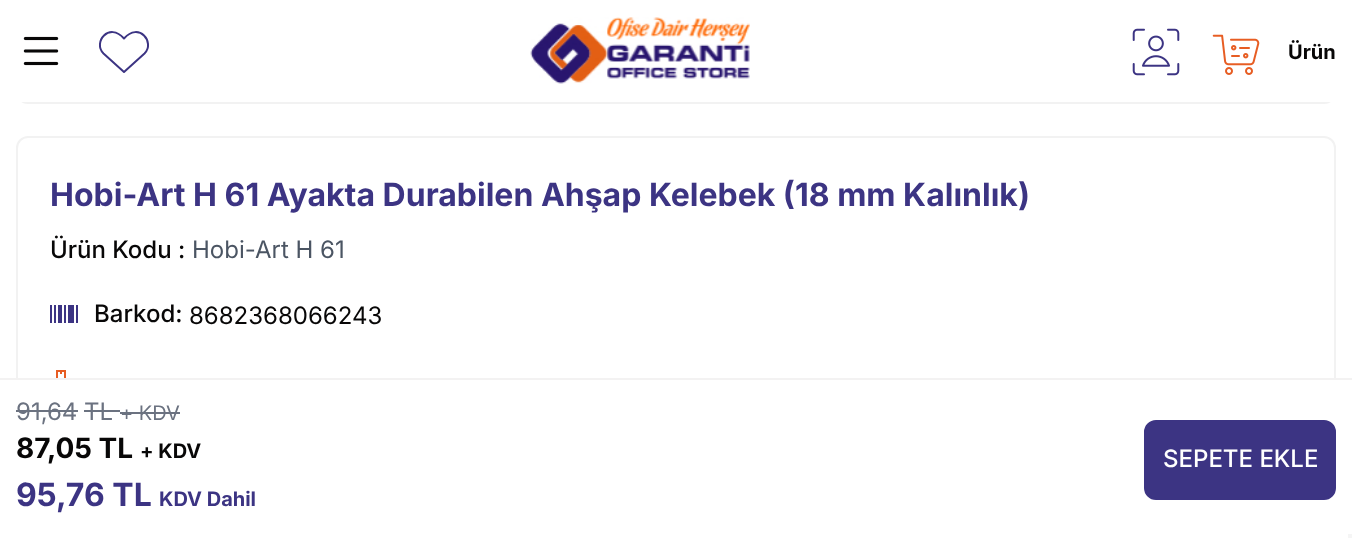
async function draw(canvas) {
  canvas.width = 1352
  canvas.height = 538
  const ctx = canvas.getContext('2d')
  ctx.miterLimit = 4
  ctx.fontKerning = 'normal'
  async function loadImage(src) {
    const img = new Image()
    img.src = src
    await img.decode()
    return img
  }

  ctx.fillStyle = '#fff'
  ctx.fillRect(0, 0, 1352, 538)
  ctx.beginPath()
  ctx.roundRect(17, -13, 1318, 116, 11)
  ctx.strokeStyle = '#f2f2f2'
  ctx.lineWidth = 2
  ctx.stroke()
  ctx.fillRect(16, 0, 1320, 102)
  ctx.drawImage(await loadImage('image0.png'), 23, 36, 36, 30)
  ctx.beginPath()
  ctx.moveTo(124, 72)
  ctx.lineTo(103.5, 53.5)
  ctx.bezierCurveTo(92.5, 42.5, 109, 21.5, 124, 38.5)
  ctx.bezierCurveTo(139, 21.5, 155.5, 42.5, 144.5, 53.5)
  ctx.closePath()
  ctx.strokeStyle = '#3c3483'
  ctx.lineCap = 'round'
  ctx.lineJoin = 'round'
  ctx.stroke()
  ctx.drawImage(await loadImage('image1.png'), 530, 17, 220, 67)
  ctx.drawImage(await loadImage('image2.png'), 1132, 28, 48, 48)
  ctx.drawImage(await loadImage('image3.png'), 1212, 34, 48, 41)
  ctx.font = 'bold 20px Inter'
  ctx.fillStyle = '#080707'
  ctx.fillText('Ürün', 1288, 59)
  ctx.beginPath()
  ctx.roundRect(17, 137, 1318, 310, 11)
  ctx.strokeStyle = '#f2f2f2'
  ctx.lineJoin = 'miter'
  ctx.stroke()
  ctx.font = 'bold 32px Inter'
  ctx.fillStyle = '#3c3483'
  ctx.fillText('Hobi-Art H 61 Ayakta Durabilen Ahşap Kelebek (18 mm Kalınlık)', 50, 206)
  ctx.font = '500 24px Inter'
  ctx.fillStyle = '#080707'
  ctx.fillText('Ürün Kodu :', 50, 258)
  ctx.font = '24px Inter'
  ctx.fillStyle = '#4b5563'
  ctx.fillText('Hobi-Art H 61', 192, 258)
  ctx.fillStyle = '#3c3483'
  ctx.fillRect(50, 305, 2, 18)
  ctx.fillRect(54, 305, 2, 18)
  ctx.fillRect(64, 305, 2, 18)
  ctx.fillRect(76, 305, 2, 18)
  ctx.fillRect(58, 305, 4, 18)
  ctx.fillRect(68, 305, 6, 18)
  ctx.font = '500 24px Inter'
  ctx.fillStyle = '#080707'
  ctx.fillText('Barkod:', 94, 322)
  ctx.font = '24px Inter'
  ctx.fillText('8682368066243', 189, 324)
  ctx.drawImage(await loadImage('image4.png'), 56, 370, 10, 8)
  ctx.fillStyle = '#fff'
  ctx.fillRect(16, 380, 1320, 68)
  ctx.fillStyle = '#f3f2f2'
  ctx.fillRect(0, 378, 1352, 2)
  ctx.fillStyle = '#6b7280'
  ctx.fillText('91,64 TL', 16, 420)
  ctx.fillRect(16, 410, 62, 2)
  ctx.font = '20px Inter'
  ctx.fillText('+ KDV', 120, 420)
  ctx.fillRect(120, 412, 60, 2)
  ctx.fillRect(84, 410, 36, 2)
  ctx.font = 'bold 28px Inter'
  ctx.fillStyle = '#080707'
  ctx.fillText('87,05 TL', 16, 458)
  ctx.font = 'bold 20px Inter'
  ctx.fillText('+ KDV', 140, 458)
  ctx.font = 'bold 32px Inter'
  ctx.fillStyle = '#3c3483'
  ctx.fillText('95,76 TL', 16, 506)
  ctx.font = 'bold 20px Inter'
  ctx.fillText('KDV Dahil', 159, 506)
  ctx.beginPath()
  ctx.roundRect(1145, 421, 190, 78, 11)
  ctx.fill()
  ctx.strokeStyle = '#3c3483'
  ctx.stroke()
  ctx.font = '500 24px Inter'
  ctx.fillStyle = '#fff'
  ctx.fillText('SEPETE EKLE', 1163, 467)
  ctx.fillStyle = '#f5f5f5'
  ctx.fillRect(1348, 534, 4, 4)
}

draw(document.querySelector('canvas'))
